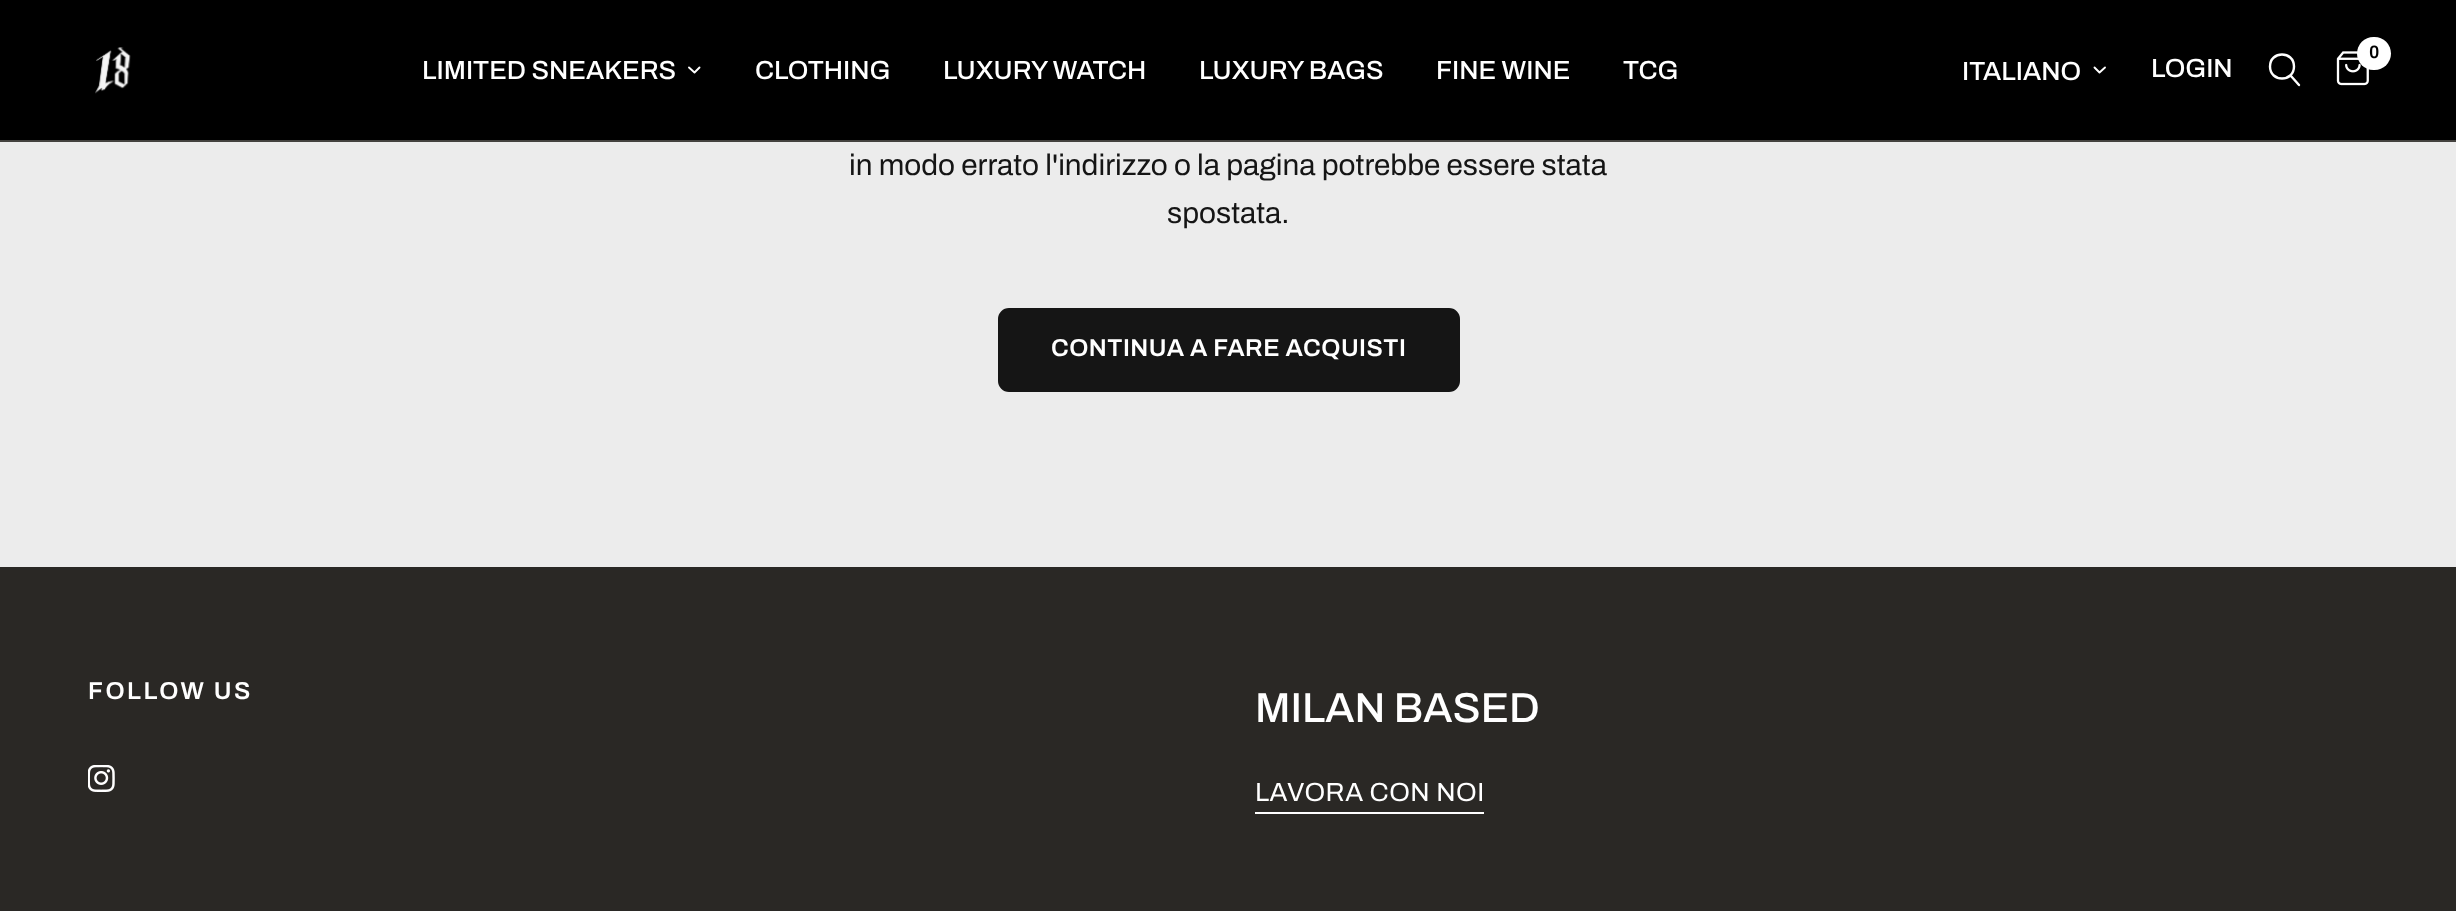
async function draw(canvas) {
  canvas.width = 2456
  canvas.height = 911
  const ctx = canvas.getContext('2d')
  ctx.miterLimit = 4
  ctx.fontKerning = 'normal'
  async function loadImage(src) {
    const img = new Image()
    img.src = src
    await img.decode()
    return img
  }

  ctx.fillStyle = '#ececec'
  ctx.fillRect(0, 0, 2456, 911)
  ctx.fillStyle = '#000'
  ctx.fillRect(0, 0, 2456, 140)
  ctx.fillStyle = '#44423f'
  ctx.fillRect(0, 140, 2456, 2)
  ctx.drawImage(await loadImage('image0.png'), 95, 47, 36, 47)
  ctx.font = '500 26.25px Archivo'
  ctx.fillStyle = '#fff'
  ctx.fillText('LIMITED SNEAKERS', 422, 79)
  ctx.beginPath()
  ctx.moveTo(699.5, 67.5)
  ctx.lineTo(694.5, 72.5)
  ctx.lineTo(689, 67.5)
  ctx.strokeStyle = '#fff'
  ctx.lineWidth = 1.9
  ctx.lineCap = 'round'
  ctx.lineJoin = 'round'
  ctx.stroke()
  ctx.fillText('CLOTHING', 755, 79)
  ctx.fillText('LUXURY WATCH', 943, 79)
  ctx.fillText('LUXURY BAGS', 1199, 79)
  ctx.fillText('FINE WINE', 1436, 79)
  ctx.fillText('TCG', 1623, 79)
  ctx.fillText('ITALIANO', 1962, 80)
  ctx.beginPath()
  ctx.moveTo(2105, 67.5)
  ctx.lineTo(2099.5, 72.5)
  ctx.lineTo(2094.5, 67.5)
  ctx.stroke()
  ctx.fillText('LOGIN', 2151, 77)
  ctx.beginPath()
  ctx.moveTo(2291, 76)
  ctx.lineTo(2299, 85)
  ctx.moveTo(2294, 66.5)
  ctx.bezierCurveTo(2294, 82.5, 2270, 82.5, 2270, 66.5)
  ctx.bezierCurveTo(2270, 50.5, 2294, 50.5, 2294, 66.5)
  ctx.closePath()
  ctx.lineWidth = 2.4
  ctx.stroke()
  ctx.drawImage(await loadImage('image1.png'), 2336, 51, 33, 35)
  ctx.beginPath()
  ctx.roundRect(2357, 37, 34, 33, 16.5)
  ctx.fill()
  ctx.font = '600 18px Archivo'
  ctx.fillStyle = '#000'
  ctx.fillText('0', 2369, 58)
  ctx.font = '29.75px Archivo'
  ctx.fillStyle = '#151515'
  ctx.fillText('in modo errato l\'indirizzo o la pagina potrebbe essere stata', 849, 175)
  ctx.fillText('spostata.', 1167, 223)
  ctx.beginPath()
  ctx.roundRect(999, 309, 460, 82, 10)
  ctx.fill()
  ctx.strokeStyle = '#151515'
  ctx.lineWidth = 2
  ctx.lineJoin = 'miter'
  ctx.stroke()
  ctx.letterSpacing = '0.5px'
  ctx.font = '600 24.5px Archivo'
  ctx.fillStyle = '#fff'
  ctx.fillText('CONTINUA A FARE ACQUISTI', 1051, 356)
  ctx.fillStyle = '#2a2825'
  ctx.fillRect(0, 567, 2456, 344)
  ctx.letterSpacing = '2.5px'
  ctx.fillStyle = '#fff'
  ctx.fillText('FOLLOW US', 88, 699)
  ctx.drawImage(await loadImage('image2.png'), 88, 765, 27, 27)
  ctx.letterSpacing = '0px'
  ctx.font = '500 42px Archivo'
  ctx.fillText('MILAN BASED', 1255, 722)
  ctx.letterSpacing = '0.5px'
  ctx.font = '26.25px Archivo'
  ctx.fillText('LAVORA CON NOI', 1255, 801)
  ctx.fillRect(1255, 812, 229, 2)
}

draw(document.querySelector('canvas'))
